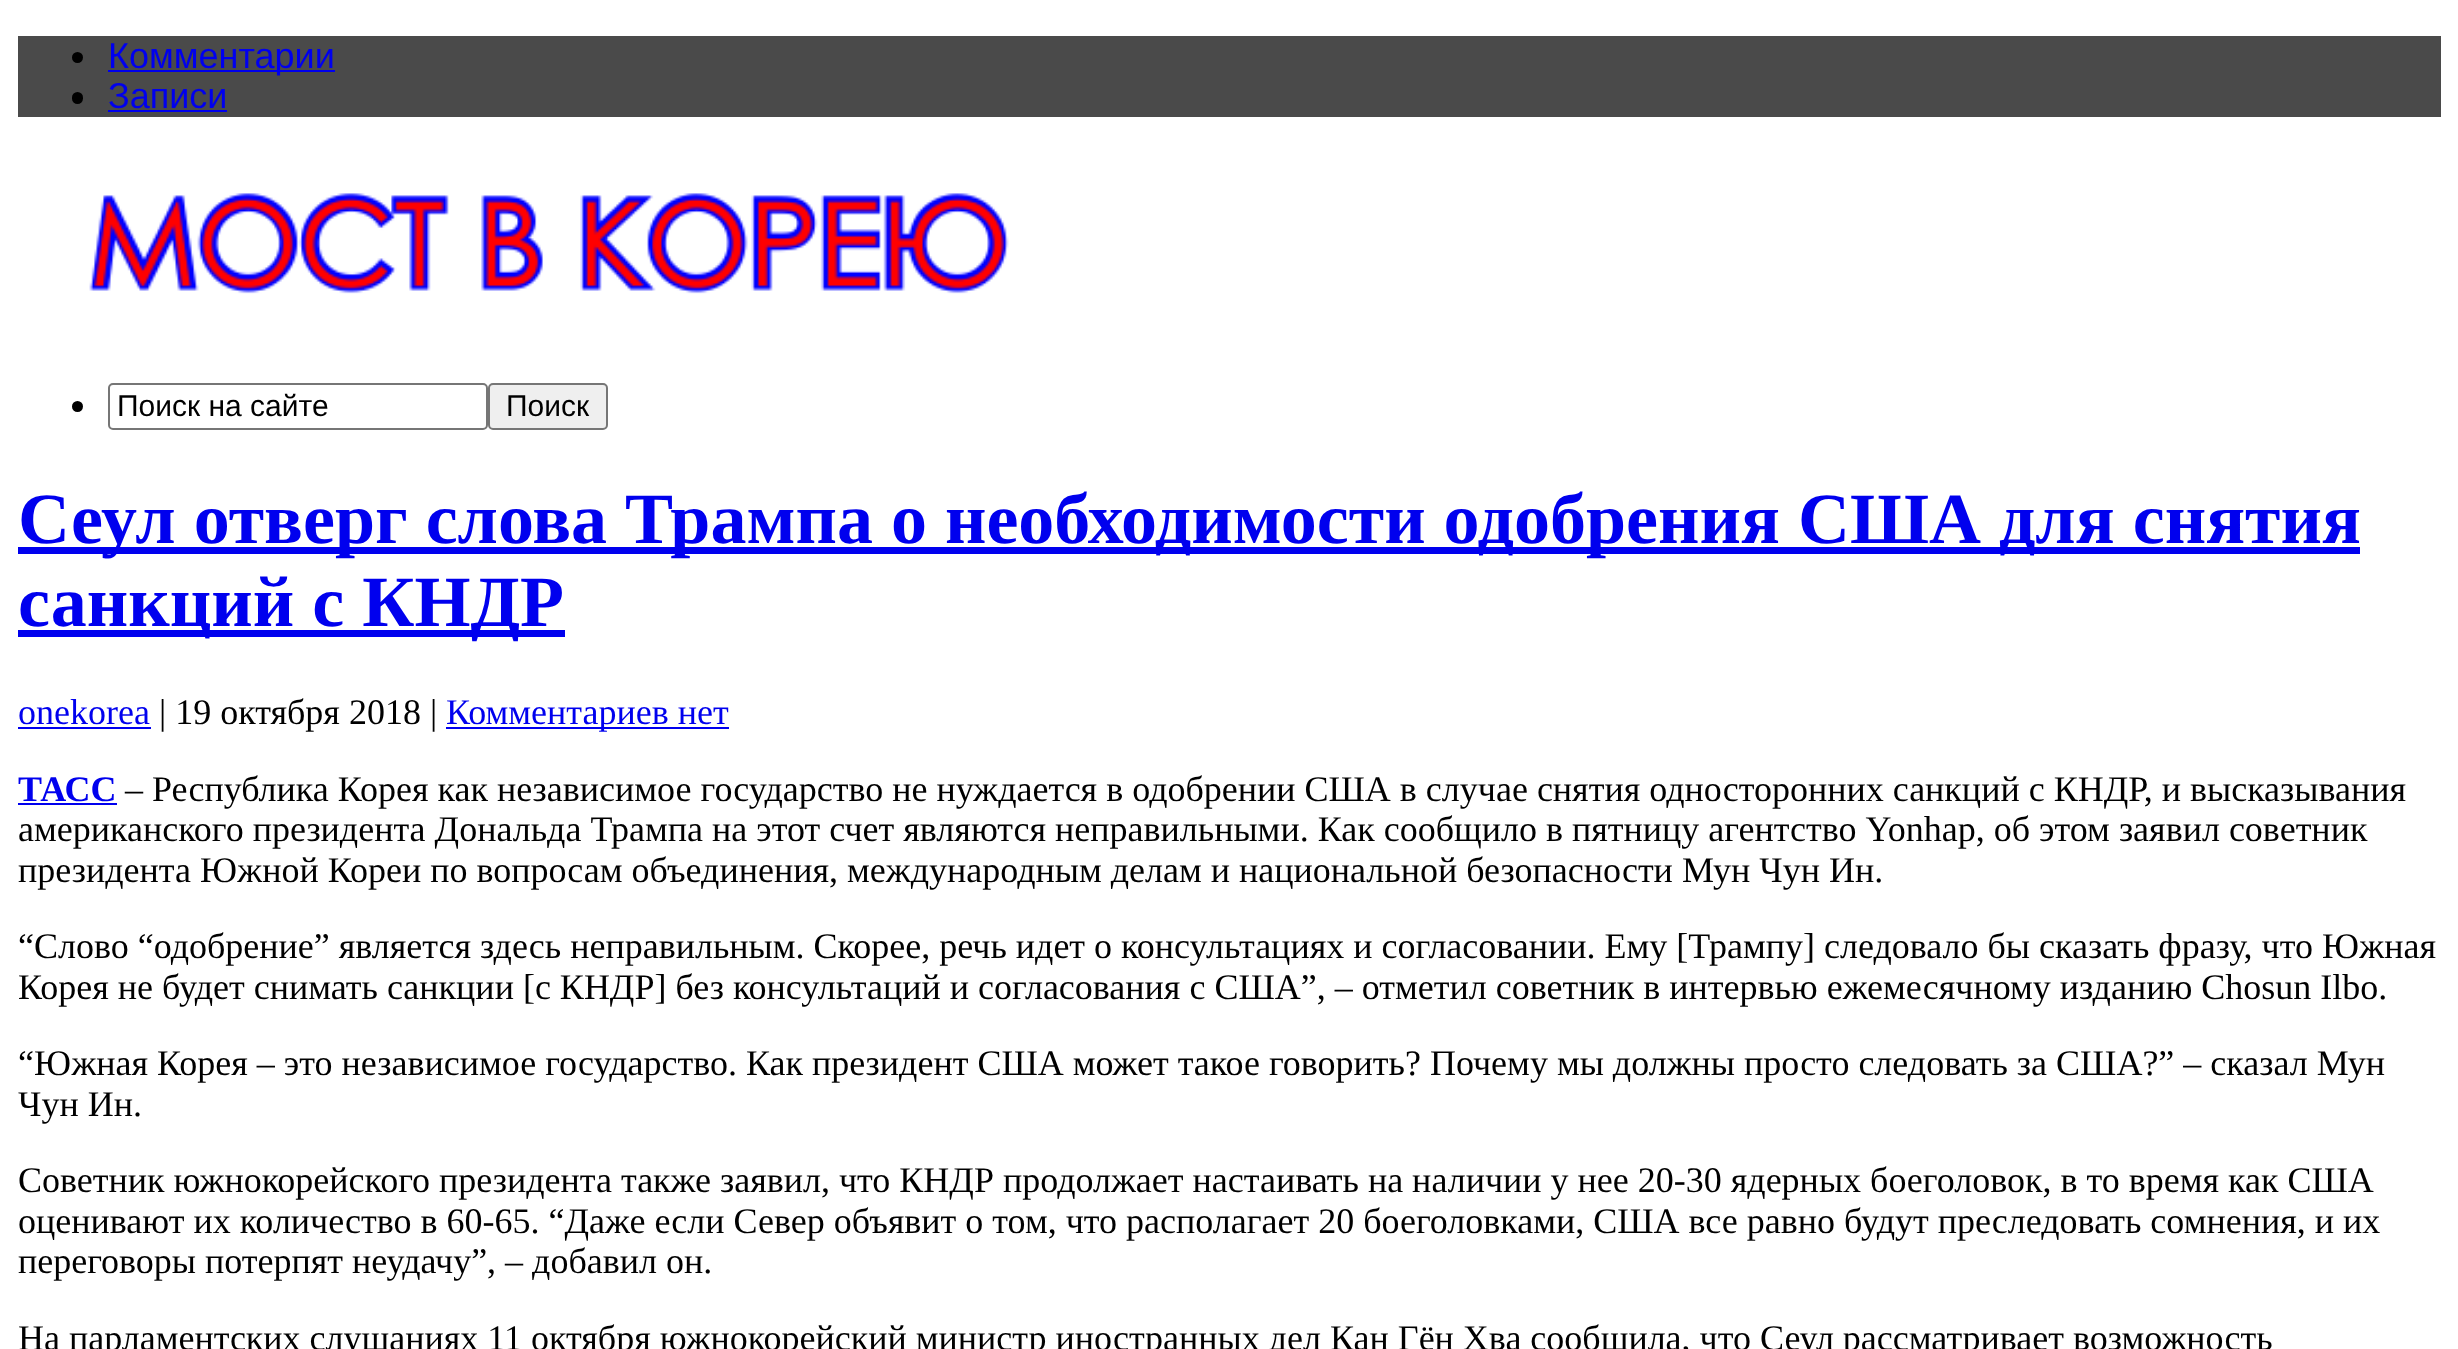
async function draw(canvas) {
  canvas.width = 2458
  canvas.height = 1349
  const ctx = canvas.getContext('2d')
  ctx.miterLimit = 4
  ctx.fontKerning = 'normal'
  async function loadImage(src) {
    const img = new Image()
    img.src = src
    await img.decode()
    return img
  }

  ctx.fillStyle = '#fff'
  ctx.fillRect(0, 0, 2458, 1349)
  ctx.fillStyle = '#4a4a4a'
  ctx.fillRect(18, 36, 2423, 81)
  ctx.fillStyle = '#000'
  ctx.beginPath()
  ctx.arc(77.5, 57.5, 5.5, 0, 2 * Math.PI)
  ctx.fill()
  ctx.fillStyle = '#00e'
  ctx.fillRect(108, 70, 227, 2)
  ctx.font = '36px Liberation Sans'
  ctx.fillText('Комментарии', 108, 68)
  ctx.fillStyle = '#000'
  ctx.beginPath()
  ctx.roundRect(72, 92, 11, 12, 5.5)
  ctx.fill()
  ctx.fillStyle = '#00e'
  ctx.fillText('Записи', 108, 108)
  ctx.fillRect(108, 110, 119, 2)
  ctx.drawImage(await loadImage('image0.png'), 89, 193, 920, 101)
  ctx.fillStyle = '#000'
  ctx.beginPath()
  ctx.arc(77.5, 406.5, 5.5, 0, 2 * Math.PI)
  ctx.fill()
  ctx.beginPath()
  ctx.roundRect(109, 384, 378, 45, 4)
  ctx.strokeStyle = '#767676'
  ctx.lineWidth = 2
  ctx.stroke()
  ctx.font = '30px Liberation Sans'
  ctx.fillText('Поиск на сайте', 117, 416)
  ctx.fillStyle = '#efefef'
  ctx.beginPath()
  ctx.roundRect(489, 384, 118, 45, 4)
  ctx.fill()
  ctx.stroke()
  ctx.fillStyle = '#000'
  ctx.fillText('Поиск', 506, 416)
  ctx.fillStyle = '#00e'
  ctx.fillRect(18, 547, 2342, 7)
  ctx.font = 'bold 72px Liberation Serif'
  ctx.fillText('Сеул отверг слова Трампа о необходимости одобрения США для снятия', 18, 543)
  ctx.fillRect(18, 630, 547, 7)
  ctx.fillText('санкций с КНДР', 18, 626)
  ctx.font = '36px Liberation Serif'
  ctx.fillText('onekorea', 18, 724)
  ctx.fillRect(18, 727, 133, 2)
  ctx.fillStyle = '#000'
  ctx.fillText('| 19 октября 2018 |', 159, 724)
  ctx.fillStyle = '#00e'
  ctx.fillRect(446, 727, 283, 2)
  ctx.fillText('Комментариев нет', 446, 724)
  ctx.font = 'bold 36px Liberation Serif'
  ctx.fillText('ТАСС', 18, 801)
  ctx.fillRect(18, 803, 99, 2)
  ctx.font = '36px Liberation Serif'
  ctx.fillStyle = '#000'
  ctx.fillText('– Республика Корея как независимое государство не нуждается в одобрении США в случае снятия односторонних санкций с КНДР, и высказывания', 125, 801)
  ctx.fillText('американского президента Дональда Трампа на этот счет являются неправильными. Как сообщило в пятницу агентство Yonhap, об этом заявил советник', 18, 841)
  ctx.fillText('президента Южной Кореи по вопросам объединения, международным делам и национальной безопасности Мун Чун Ин.', 18, 882)
  ctx.fillText('“Слово “одобрение” является здесь неправильным. Скорее, речь идет о консультациях и согласовании. Ему [Трампу] следовало бы сказать фразу, что Южная', 18, 958)
  ctx.fillText('Корея не будет снимать санкции [с КНДР] без консультаций и согласования с США”, – отметил советник в интервью ежемесячному изданию Chosun Ilbo.', 18, 999)
  ctx.fillText('“Южная Корея – это независимое государство. Как президент США может такое говорить? Почему мы должны просто следовать за США?” – сказал Мун', 18, 1075)
  ctx.fillText('Чун Ин.', 18, 1116)
  ctx.fillText('Советник южнокорейского президента также заявил, что КНДР продолжает настаивать на наличии у нее 20-30 ядерных боеголовок, в то время как США', 18, 1192)
  ctx.fillText('оценивают их количество в 60-65. “Даже если Север объявит о том, что располагает 20 боеголовками, США все равно будут преследовать сомнения, и их', 18, 1233)
  ctx.fillText('переговоры потерпят неудачу”, – добавил он.', 18, 1273)
  ctx.fillText('На парламентских слушаниях 11 октября южнокорейский министр иностранных дел Кан Гён Хва сообщила, что Сеул рассматривает возможность', 18, 1350)
}

draw(document.querySelector('canvas'))
